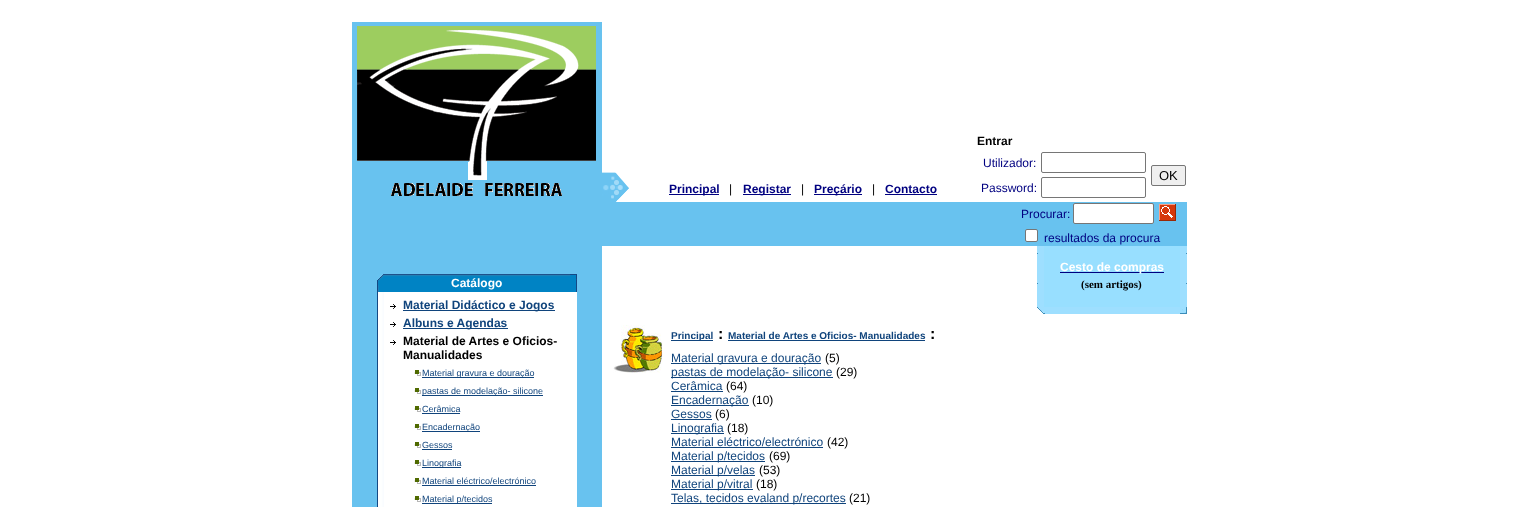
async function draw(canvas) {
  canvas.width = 1539
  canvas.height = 507
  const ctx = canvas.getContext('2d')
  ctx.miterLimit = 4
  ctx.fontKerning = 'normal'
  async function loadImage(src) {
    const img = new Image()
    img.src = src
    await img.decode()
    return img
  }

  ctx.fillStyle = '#fff'
  ctx.fillRect(0, 0, 1539, 507)
  ctx.fillStyle = '#68c2ef'
  ctx.fillRect(352, 22, 250, 485)
  ctx.drawImage(await loadImage('image0.png'), 357, 26, 239, 170)
  ctx.drawImage(await loadImage('image1.png'), 602, 172, 27, 30)
  ctx.fillStyle = '#000080'
  ctx.fillRect(669, 194, 50, 1)
  ctx.font = 'bold 12px Liberation Sans'
  ctx.fillText('Principal', 669, 193)
  ctx.font = '12px Liberation Sans'
  ctx.fillStyle = '#000'
  ctx.fillText('|', 729, 193)
  ctx.fillStyle = '#000080'
  ctx.fillRect(743, 194, 48, 1)
  ctx.font = 'bold 12px Liberation Sans'
  ctx.fillText('Registar', 743, 193)
  ctx.font = '12px Liberation Sans'
  ctx.fillStyle = '#000'
  ctx.fillText('|', 801, 193)
  ctx.fillStyle = '#000080'
  ctx.fillRect(814, 194, 48, 1)
  ctx.font = 'bold 12px Liberation Sans'
  ctx.fillText('Preçário', 814, 193)
  ctx.font = '12px Liberation Sans'
  ctx.fillStyle = '#000'
  ctx.fillText('|', 872, 193)
  ctx.font = 'bold 12px Liberation Sans'
  ctx.fillStyle = '#000080'
  ctx.fillText('Contacto', 885, 193)
  ctx.fillRect(885, 194, 52, 1)
  ctx.fillStyle = '#000'
  ctx.fillText('Entrar', 977, 145)
  ctx.font = '12px Liberation Sans'
  ctx.fillStyle = '#000080'
  ctx.fillText('Utilizador:', 983, 167)
  ctx.beginPath()
  ctx.roundRect(1041.5, 152.5, 104, 20, 1.5)
  ctx.strokeStyle = '#767676'
  ctx.stroke()
  ctx.fillText('Password:', 981, 192)
  ctx.beginPath()
  ctx.roundRect(1041.5, 177.5, 104, 20, 1.5)
  ctx.stroke()
  ctx.fillStyle = '#efefef'
  ctx.beginPath()
  ctx.roundRect(1151.5, 165.5, 34, 20, 1.5)
  ctx.fill()
  ctx.stroke()
  ctx.font = '13px Liberation Sans'
  ctx.fillStyle = '#000'
  ctx.fillText('OK', 1159, 180)
  ctx.fillStyle = '#68c2ef'
  ctx.fillRect(602, 202, 585, 44)
  ctx.font = '12px Liberation Sans'
  ctx.fillStyle = '#000080'
  ctx.fillText('Procurar:', 1021, 218)
  ctx.fillStyle = '#fff'
  ctx.beginPath()
  ctx.roundRect(1073.5, 203.5, 80, 20, 1.5)
  ctx.fill()
  ctx.stroke()
  ctx.drawImage(await loadImage('image2.png'), 1159, 204, 17, 17)
  ctx.beginPath()
  ctx.roundRect(1025.5, 229.5, 12, 12, 1.5)
  ctx.fill()
  ctx.stroke()
  ctx.fillStyle = '#000080'
  ctx.fillText('resultados da procura', 1044, 242)
  ctx.drawImage(await loadImage('image3.png'), 377, 274, 7, 18)
  ctx.drawImage(await loadImage('image4.png'), 384, 274, 186, 18)
  ctx.font = 'bold 12px Liberation Sans'
  ctx.fillStyle = '#fff'
  ctx.fillText('Catálogo', 451, 287)
  ctx.drawImage(await loadImage('image5.png'), 570, 274, 7, 18)
  ctx.drawImage(await loadImage('image6.png'), 377, 292, 7, 215)
  ctx.fillRect(384, 292, 186, 215)
  ctx.drawImage(await loadImage('image7.png'), 390, 304, 6, 5)
  ctx.fillStyle = '#10447c'
  ctx.fillRect(403, 310, 152, 1)
  ctx.fillText('Material Didáctico e Jogos', 403, 309)
  ctx.drawImage(await loadImage('image7.png'), 390, 322, 6, 5)
  ctx.fillRect(403, 328, 105, 1)
  ctx.fillText('Albuns e Agendas', 403, 327)
  ctx.drawImage(await loadImage('image7.png'), 390, 340, 6, 5)
  ctx.fillStyle = '#000'
  ctx.fillText('Material de Artes e Oficios-', 403, 345)
  ctx.fillText('Manualidades', 403, 359)
  ctx.drawImage(await loadImage('image8.png'), 414, 370, 7, 6)
  ctx.fillStyle = '#10447c'
  ctx.fillRect(422, 377, 112, 1)
  ctx.font = '9px Liberation Sans'
  ctx.fillText('Material gravura e douração', 422, 376)
  ctx.drawImage(await loadImage('image8.png'), 414, 388, 7, 6)
  ctx.fillRect(422, 395, 121, 1)
  ctx.fillText('pastas de modelação- silicone', 422, 394)
  ctx.drawImage(await loadImage('image8.png'), 414, 406, 7, 6)
  ctx.fillText('Cerâmica', 422, 412)
  ctx.fillRect(422, 413, 38, 1)
  ctx.drawImage(await loadImage('image8.png'), 414, 424, 7, 6)
  ctx.fillRect(422, 431, 58, 1)
  ctx.fillText('Encadernação', 422, 430)
  ctx.drawImage(await loadImage('image8.png'), 414, 442, 7, 6)
  ctx.fillText('Gessos', 422, 448)
  ctx.fillRect(422, 449, 30, 1)
  ctx.drawImage(await loadImage('image8.png'), 414, 460, 7, 6)
  ctx.fillRect(422, 467, 39, 1)
  ctx.fillText('Linografia', 422, 466)
  ctx.drawImage(await loadImage('image8.png'), 414, 478, 7, 6)
  ctx.fillText('Material eléctrico/electrónico', 422, 484)
  ctx.fillRect(422, 485, 114, 1)
  ctx.drawImage(await loadImage('image8.png'), 414, 496, 7, 6)
  ctx.fillRect(422, 503, 70, 1)
  ctx.fillText('Material p/tecidos', 422, 502)
  ctx.fillStyle = '#feffff'
  ctx.fillRect(570, 292, 7, 215)
  ctx.fillStyle = '#98dfff'
  ctx.fillRect(1044, 246, 136, 61)
  ctx.fillStyle = '#9edfff'
  ctx.fillRect(1037, 246, 7, 61)
  ctx.fillStyle = '#3b8db9'
  ctx.fillRect(1037, 253, 1, 1)
  ctx.fillStyle = '#9edfff'
  ctx.fillRect(1180, 246, 7, 61)
  ctx.fillStyle = '#3b8db9'
  ctx.fillRect(1186, 253, 1, 1)
  ctx.fillRect(1037, 283, 1, 1)
  ctx.fillStyle = '#000080'
  ctx.fillRect(1060, 272, 104, 1)
  ctx.font = 'bold 12px Liberation Sans'
  ctx.fillStyle = '#fff'
  ctx.fillText('Cesto de compras', 1060, 271)
  ctx.font = 'bold 11px Liberation Serif'
  ctx.fillStyle = '#000'
  ctx.fillText('(sem artigos)', 1081, 288)
  ctx.fillStyle = '#3b8db9'
  ctx.fillRect(1186, 283, 1, 1)
  ctx.drawImage(await loadImage('image9.png'), 1037, 307, 7, 7)
  ctx.fillStyle = '#9edfff'
  ctx.fillRect(1044, 307, 136, 7)
  ctx.fillStyle = '#3b8db9'
  ctx.fillRect(1044, 313, 1, 1)
  ctx.drawImage(await loadImage('image10.png'), 1180, 307, 7, 7)
  ctx.drawImage(await loadImage('image11.png'), 613, 325, 50, 48)
  ctx.fillStyle = '#10447c'
  ctx.fillRect(671, 340, 42, 1)
  ctx.font = 'bold 10px Liberation Sans'
  ctx.fillText('Principal', 671, 339)
  ctx.font = 'bold 16px Liberation Sans'
  ctx.fillStyle = '#000'
  ctx.fillText(':', 718, 339)
  ctx.font = 'bold 10px Liberation Sans'
  ctx.fillStyle = '#10447c'
  ctx.fillText('Material de Artes e Oficios- Manualidades', 728, 339)
  ctx.fillRect(728, 340, 197, 1)
  ctx.font = 'bold 16px Liberation Sans'
  ctx.fillStyle = '#000'
  ctx.fillText(':', 930, 339)
  ctx.fillStyle = '#10447c'
  ctx.fillRect(671, 363, 150, 1)
  ctx.font = '12px Liberation Sans'
  ctx.fillText('Material gravura e douração', 671, 362)
  ctx.fillStyle = '#000'
  ctx.fillText('(5)', 825, 362)
  ctx.fillStyle = '#10447c'
  ctx.fillRect(671, 377, 162, 1)
  ctx.fillText('pastas de modelação- silicone', 671, 376)
  ctx.fillStyle = '#000'
  ctx.fillText('(29)', 836, 376)
  ctx.fillStyle = '#10447c'
  ctx.fillText('Cerâmica', 671, 390)
  ctx.fillRect(671, 391, 52, 1)
  ctx.fillStyle = '#000'
  ctx.fillText('(64)', 726, 390)
  ctx.fillStyle = '#10447c'
  ctx.fillRect(671, 405, 78, 1)
  ctx.fillText('Encadernação', 671, 404)
  ctx.fillStyle = '#000'
  ctx.fillText('(10)', 752, 404)
  ctx.fillStyle = '#10447c'
  ctx.fillText('Gessos', 671, 418)
  ctx.fillRect(671, 419, 41, 1)
  ctx.fillStyle = '#000'
  ctx.fillText('(6)', 715, 418)
  ctx.fillStyle = '#10447c'
  ctx.fillRect(671, 433, 53, 1)
  ctx.fillText('Linografia', 671, 432)
  ctx.fillStyle = '#000'
  ctx.fillText('(18)', 727, 432)
  ctx.fillStyle = '#10447c'
  ctx.fillText('Material eléctrico/electrónico', 671, 446)
  ctx.fillRect(671, 447, 152, 1)
  ctx.fillStyle = '#000'
  ctx.fillText('(42)', 827, 446)
  ctx.fillStyle = '#10447c'
  ctx.fillRect(671, 461, 94, 1)
  ctx.fillText('Material p/tecidos', 671, 460)
  ctx.fillStyle = '#000'
  ctx.fillText('(69)', 769, 460)
  ctx.fillStyle = '#10447c'
  ctx.fillRect(671, 475, 84, 1)
  ctx.fillText('Material p/velas', 671, 474)
  ctx.fillStyle = '#000'
  ctx.fillText('(53)', 759, 474)
  ctx.fillStyle = '#10447c'
  ctx.fillRect(671, 489, 82, 1)
  ctx.fillText('Material p/vitral', 671, 488)
  ctx.fillStyle = '#000'
  ctx.fillText('(18)', 756, 488)
  ctx.fillStyle = '#10447c'
  ctx.fillRect(671, 503, 175, 1)
  ctx.fillText('Telas, tecidos evaland p/recortes', 671, 502)
  ctx.fillStyle = '#000'
  ctx.fillText('(21)', 849, 502)
}

draw(document.querySelector('canvas'))
